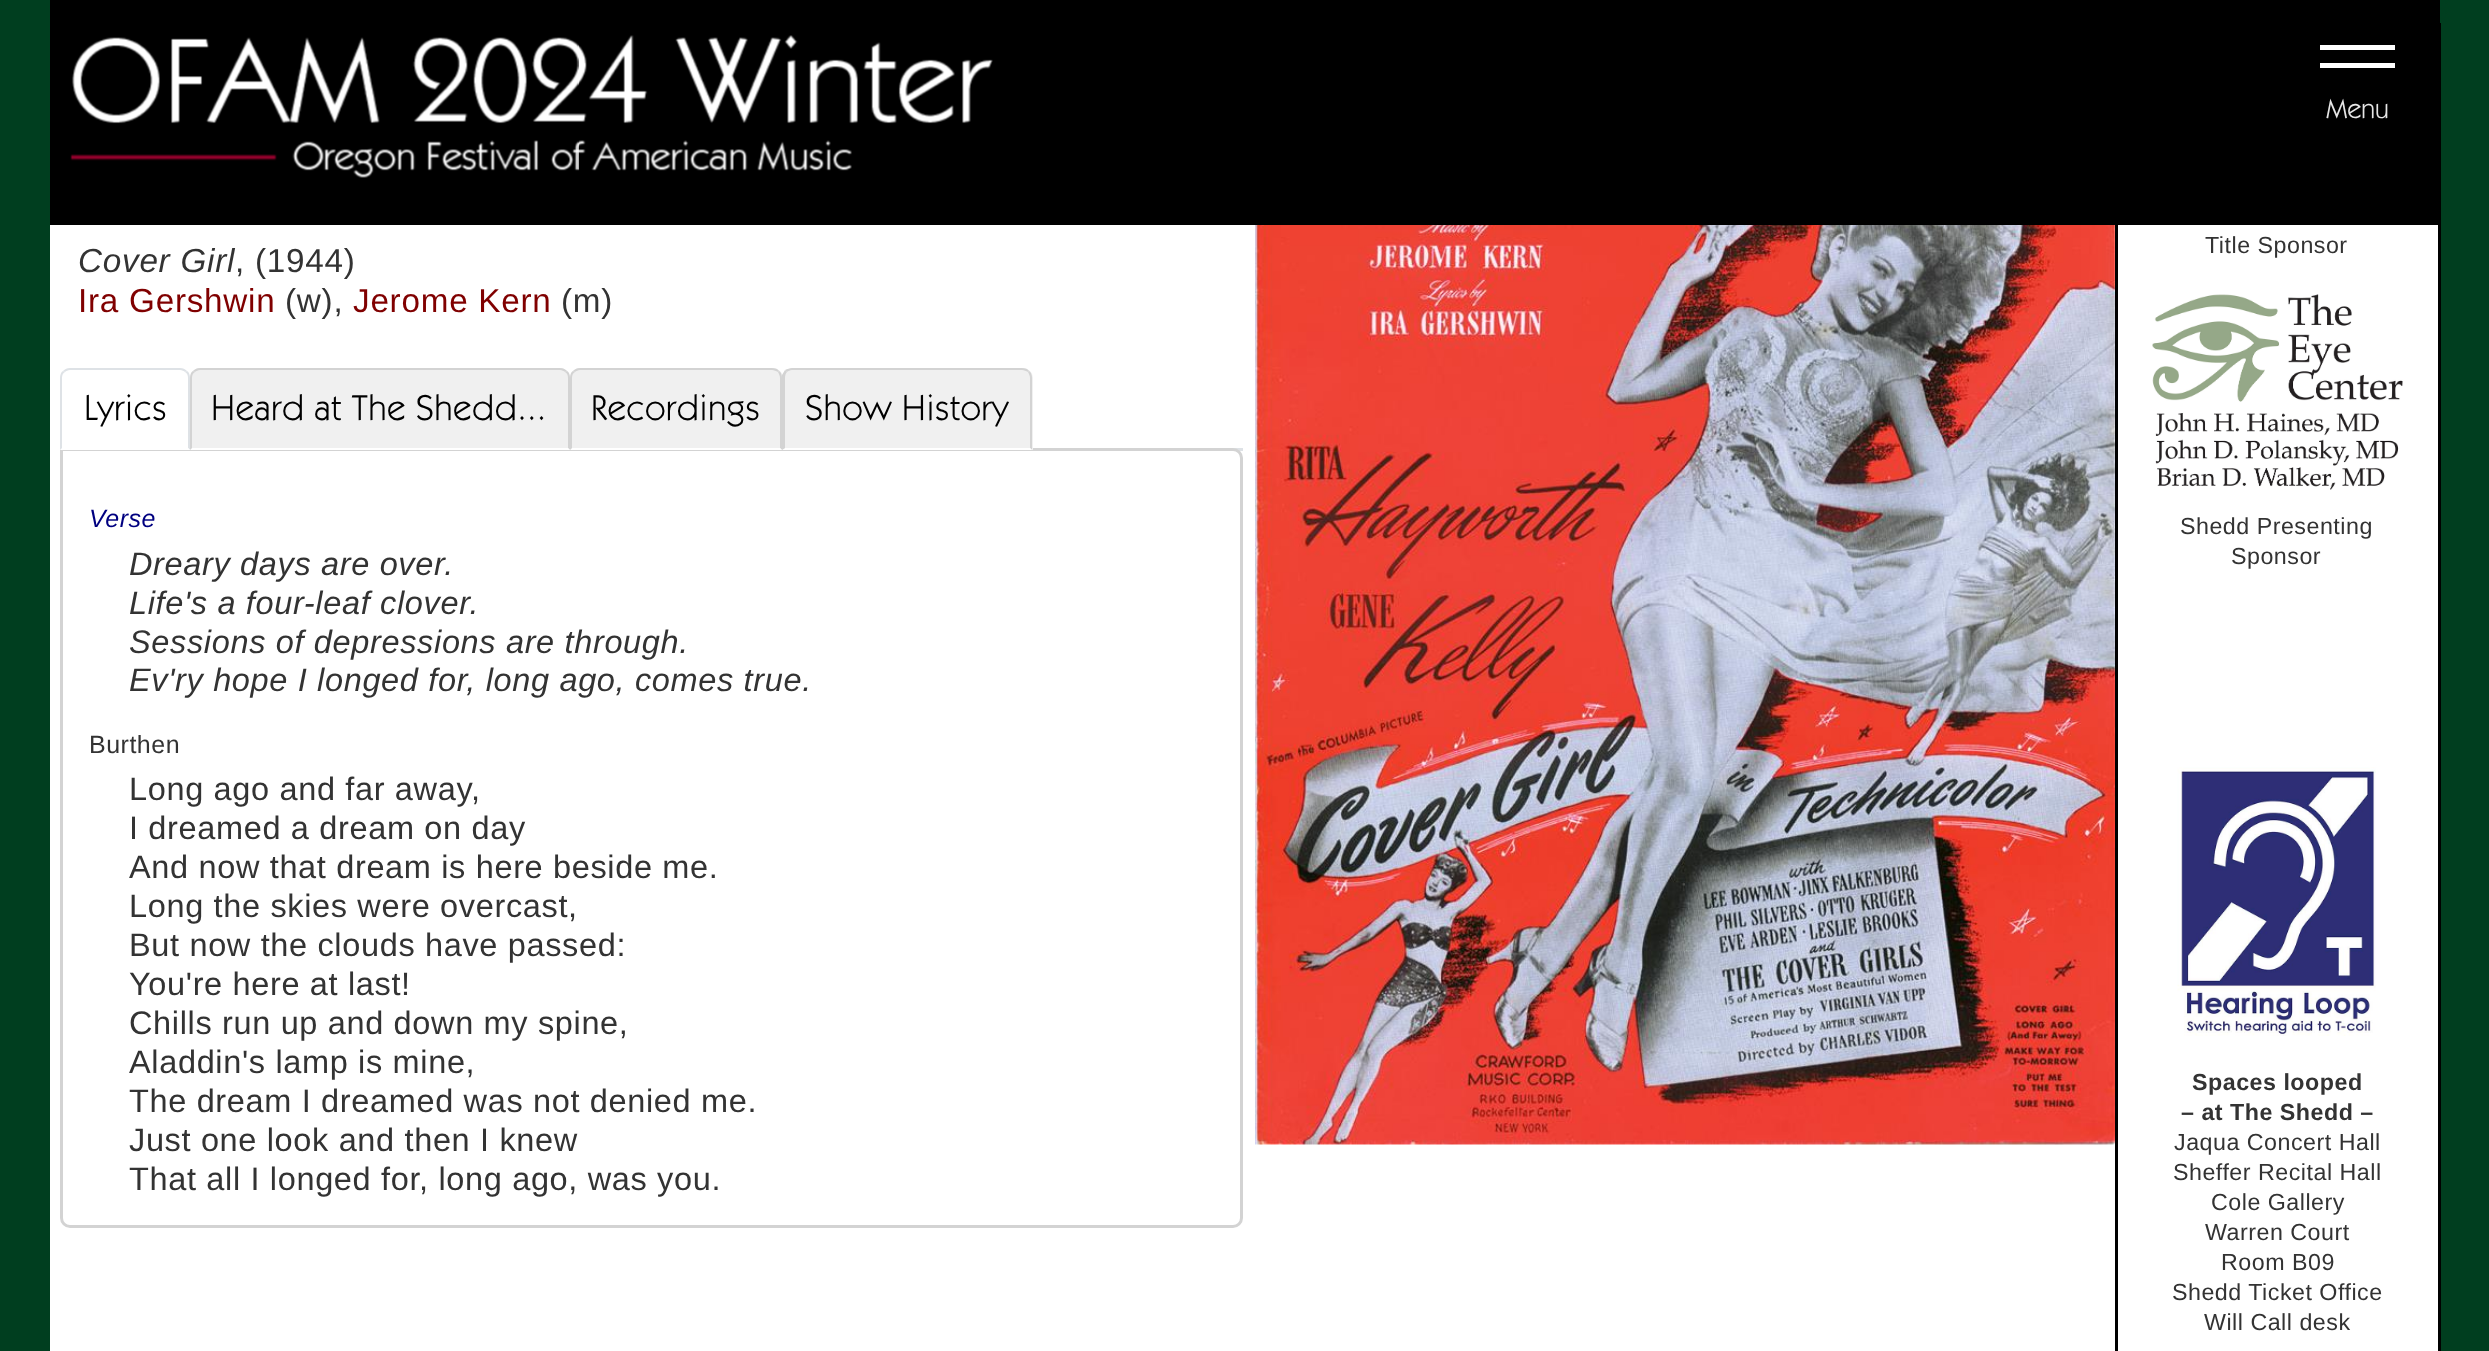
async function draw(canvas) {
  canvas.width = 2489
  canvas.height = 1351
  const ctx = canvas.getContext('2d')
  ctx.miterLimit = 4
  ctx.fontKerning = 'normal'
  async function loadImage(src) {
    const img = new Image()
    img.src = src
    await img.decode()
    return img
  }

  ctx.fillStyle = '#003e1f'
  ctx.fillRect(0, 0, 2489, 1351)
  ctx.fillStyle = '#000'
  ctx.fillRect(2438, 23, 3, 1328)
  ctx.fillRect(50, 0, 2390, 225)
  ctx.drawImage(await loadImage('image0.png'), 70, 35, 923, 143)
  ctx.fillStyle = '#fff'
  ctx.fillRect(2320, 45, 75, 5)
  ctx.fillRect(2320, 63, 75, 5)
  ctx.font = '27.5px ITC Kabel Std'
  ctx.fillStyle = '#e6e6e6'
  ctx.fillText('Menu', 2326, 118)
  ctx.fillStyle = '#fff'
  ctx.fillRect(50, 225, 2388, 1126)
  ctx.letterSpacing = '0.75px'
  ctx.font = 'italic 33.25px Liberation Sans'
  ctx.fillStyle = '#333'
  ctx.fillText('Cover Girl', 78, 272)
  ctx.font = '33.25px Liberation Sans'
  ctx.fillText(', (1944)', 235, 272)
  ctx.fillStyle = '#800000'
  ctx.fillText('Ira Gershwin', 78, 312)
  ctx.fillStyle = '#333'
  ctx.fillText('(w),', 285, 312)
  ctx.fillStyle = '#800000'
  ctx.fillText('Jerome Kern', 353, 312)
  ctx.fillStyle = '#333'
  ctx.fillText('(m)', 561, 312)
  ctx.fillStyle = '#dee2e6'
  ctx.fillRect(1233, 448, 10, 3)
  ctx.beginPath()
  ctx.roundRect(61.5, 449.5, 1180, 777, [0, 8.5, 8.5, 8.5])
  ctx.strokeStyle = '#d3d3d3'
  ctx.lineWidth = 3
  ctx.stroke()
  ctx.fillStyle = '#fff'
  ctx.beginPath()
  ctx.roundRect(60, 368, 130, 82, [10, 10, 0, 0])
  ctx.fill()
  ctx.fillStyle = '#dee2e6'
  ctx.beginPath()
  ctx.moveTo(70, 368)
  ctx.bezierCurveTo(67, 368, 65, 369, 63, 371)
  ctx.lineTo(65, 372)
  ctx.bezierCurveTo(66, 371, 68, 370, 70, 370)
  ctx.lineTo(180, 370)
  ctx.bezierCurveTo(182, 370, 184, 371, 185, 372)
  ctx.lineTo(187, 371)
  ctx.bezierCurveTo(185, 369, 183, 368, 180, 368)
  ctx.closePath()
  ctx.fill()
  ctx.beginPath()
  ctx.moveTo(187, 371)
  ctx.bezierCurveTo(189, 372, 190, 375, 190, 378)
  ctx.lineTo(190, 450)
  ctx.lineTo(188, 448)
  ctx.lineTo(188, 378)
  ctx.bezierCurveTo(188, 375, 187, 373, 185, 372)
  ctx.closePath()
  ctx.fill()
  ctx.fillStyle = '#fff'
  ctx.beginPath()
  ctx.moveTo(190, 450)
  ctx.lineTo(188, 448)
  ctx.lineTo(62, 448)
  ctx.lineTo(60, 450)
  ctx.closePath()
  ctx.fill()
  ctx.fillStyle = '#dee2e6'
  ctx.beginPath()
  ctx.moveTo(60, 450)
  ctx.lineTo(62, 448)
  ctx.lineTo(62, 378)
  ctx.bezierCurveTo(62, 375, 63, 373, 65, 372)
  ctx.lineTo(63, 371)
  ctx.bezierCurveTo(61, 372, 60, 375, 60, 378)
  ctx.closePath()
  ctx.fill()
  ctx.font = '36px ITC Kabel Std'
  ctx.fillStyle = '#000'
  ctx.fillText('Lyrics', 84, 420)
  ctx.fillStyle = '#f0f0f0'
  ctx.beginPath()
  ctx.roundRect(190, 368, 380, 82, [10, 10, 0, 0])
  ctx.fill()
  ctx.fillStyle = '#d3d3d3'
  ctx.beginPath()
  ctx.moveTo(200, 368)
  ctx.bezierCurveTo(197, 368, 195, 369, 193, 371)
  ctx.lineTo(195, 372)
  ctx.bezierCurveTo(196, 371, 198, 370, 200, 370)
  ctx.lineTo(560, 370)
  ctx.bezierCurveTo(562, 370, 564, 371, 565, 372)
  ctx.lineTo(567, 371)
  ctx.bezierCurveTo(565, 369, 563, 368, 560, 368)
  ctx.closePath()
  ctx.fill()
  ctx.beginPath()
  ctx.moveTo(567, 371)
  ctx.bezierCurveTo(569, 372, 570, 375, 570, 378)
  ctx.lineTo(570, 450)
  ctx.lineTo(568, 448)
  ctx.lineTo(568, 378)
  ctx.bezierCurveTo(568, 375, 567, 373, 565, 372)
  ctx.closePath()
  ctx.fill()
  ctx.fillStyle = '#fff'
  ctx.beginPath()
  ctx.moveTo(570, 450)
  ctx.lineTo(568, 448)
  ctx.lineTo(192, 448)
  ctx.lineTo(190, 450)
  ctx.closePath()
  ctx.fill()
  ctx.fillStyle = '#d3d3d3'
  ctx.beginPath()
  ctx.moveTo(190, 450)
  ctx.lineTo(192, 448)
  ctx.lineTo(192, 378)
  ctx.bezierCurveTo(192, 375, 193, 373, 195, 372)
  ctx.lineTo(193, 371)
  ctx.bezierCurveTo(191, 372, 190, 375, 190, 378)
  ctx.closePath()
  ctx.fill()
  ctx.fillStyle = '#000'
  ctx.fillText('Heard at The Shedd...', 211, 420)
  ctx.fillStyle = '#f0f0f0'
  ctx.beginPath()
  ctx.roundRect(570, 368, 213, 82, [10, 10, 0, 0])
  ctx.fill()
  ctx.fillStyle = '#d3d3d3'
  ctx.beginPath()
  ctx.moveTo(580, 368)
  ctx.bezierCurveTo(577, 368, 575, 369, 573, 371)
  ctx.lineTo(575, 372)
  ctx.bezierCurveTo(576, 371, 578, 370, 580, 370)
  ctx.lineTo(772, 370)
  ctx.bezierCurveTo(774, 370, 776, 371, 778, 372)
  ctx.lineTo(779, 371)
  ctx.bezierCurveTo(778, 369, 775, 368, 772, 368)
  ctx.closePath()
  ctx.fill()
  ctx.beginPath()
  ctx.moveTo(782, 450)
  ctx.lineTo(782, 378)
  ctx.bezierCurveTo(782, 375, 781, 372, 779, 371)
  ctx.lineTo(778, 372)
  ctx.bezierCurveTo(779, 374, 780, 376, 780, 378)
  ctx.lineTo(780, 448)
  ctx.closePath()
  ctx.fill()
  ctx.fillStyle = '#fff'
  ctx.beginPath()
  ctx.moveTo(782, 450)
  ctx.lineTo(780, 448)
  ctx.lineTo(572, 448)
  ctx.lineTo(570, 450)
  ctx.closePath()
  ctx.fill()
  ctx.fillStyle = '#d3d3d3'
  ctx.beginPath()
  ctx.moveTo(570, 450)
  ctx.lineTo(572, 448)
  ctx.lineTo(572, 378)
  ctx.bezierCurveTo(572, 375, 573, 373, 575, 372)
  ctx.lineTo(573, 371)
  ctx.bezierCurveTo(571, 372, 570, 375, 570, 378)
  ctx.closePath()
  ctx.fill()
  ctx.fillStyle = '#000'
  ctx.fillText('Recordings', 591, 420)
  ctx.fillStyle = '#f0f0f0'
  ctx.beginPath()
  ctx.roundRect(783, 368, 250, 82, [10, 10, 0, 0])
  ctx.fill()
  ctx.fillStyle = '#d3d3d3'
  ctx.beginPath()
  ctx.moveTo(792, 368)
  ctx.bezierCurveTo(790, 368, 787, 369, 785, 370)
  ctx.lineTo(787, 372)
  ctx.bezierCurveTo(788, 371, 790, 370, 792, 370)
  ctx.lineTo(1022, 370)
  ctx.bezierCurveTo(1024, 370, 1026, 371, 1028, 372)
  ctx.lineTo(1029, 371)
  ctx.bezierCurveTo(1028, 369, 1025, 368, 1022, 368)
  ctx.closePath()
  ctx.fill()
  ctx.beginPath()
  ctx.moveTo(1032, 450)
  ctx.lineTo(1032, 378)
  ctx.bezierCurveTo(1032, 375, 1031, 372, 1029, 371)
  ctx.lineTo(1028, 372)
  ctx.bezierCurveTo(1029, 374, 1030, 376, 1030, 378)
  ctx.lineTo(1030, 448)
  ctx.closePath()
  ctx.fill()
  ctx.fillStyle = '#fff'
  ctx.beginPath()
  ctx.moveTo(782, 450)
  ctx.lineTo(1032, 450)
  ctx.lineTo(1030, 448)
  ctx.lineTo(785, 448)
  ctx.closePath()
  ctx.fill()
  ctx.fillStyle = '#d3d3d3'
  ctx.beginPath()
  ctx.moveTo(782, 450)
  ctx.lineTo(785, 448)
  ctx.lineTo(785, 378)
  ctx.bezierCurveTo(785, 375, 786, 373, 787, 372)
  ctx.lineTo(785, 370)
  ctx.bezierCurveTo(784, 372, 783, 373, 782, 375)
  ctx.closePath()
  ctx.fill()
  ctx.fillStyle = '#000'
  ctx.fillText('Show History', 805, 420)
  ctx.letterSpacing = '0.5px'
  ctx.font = 'italic 25px Liberation Sans'
  ctx.fillStyle = '#000080'
  ctx.fillText('Verse', 89, 527)
  ctx.letterSpacing = '0.65px'
  ctx.font = 'italic 32.5px Liberation Sans'
  ctx.fillStyle = '#333'
  ctx.fillText('Dreary days are over.', 129, 575)
  ctx.fillText('Life\'s a four-leaf clover.', 129, 614)
  ctx.fillText('Sessions of depressions are through.', 129, 653)
  ctx.fillText('Ev\'ry hope I longed for, long ago, comes true.', 129, 691)
  ctx.letterSpacing = '0.5px'
  ctx.font = '25px Liberation Sans'
  ctx.fillText('Burthen', 89, 753)
  ctx.letterSpacing = '0.65px'
  ctx.font = '32.5px Liberation Sans'
  ctx.fillText('Long ago and far away,', 129, 800)
  ctx.fillText('I dreamed a dream on day', 129, 839)
  ctx.fillText('And now that dream is here beside me.', 129, 878)
  ctx.fillText('Long the skies were overcast,', 129, 917)
  ctx.fillText('But now the clouds have passed:', 129, 956)
  ctx.fillText('You\'re here at last!', 129, 995)
  ctx.fillText('Chills run up and down my spine,', 129, 1034)
  ctx.fillText('Aladdin\'s lamp is mine,', 129, 1073)
  ctx.fillText('The dream I dreamed was not denied me.', 129, 1112)
  ctx.fillText('Just one look and then I knew', 129, 1151)
  ctx.fillText('That all I longed for, long ago, was you.', 129, 1190)
  ctx.drawImage(await loadImage('image1.png'), 1255, 225, 860, 920)
  ctx.fillStyle = '#000'
  ctx.fillRect(2115, 225, 3, 1126)
  ctx.letterSpacing = '0.5px'
  ctx.font = '23.25px Liberation Sans'
  ctx.fillStyle = '#333'
  ctx.fillText('Title Sponsor', 2205, 253)
  ctx.drawImage(await loadImage('image2.png'), 2152, 294, 251, 196)
  ctx.fillText('Shedd Presenting', 2180, 534)
  ctx.fillText('Sponsor', 2231, 564)
  ctx.drawImage(await loadImage('image3.png'), 2177, 767, 199, 269)
  ctx.font = 'bold 23.25px Liberation Sans'
  ctx.fillText('Spaces looped', 2192, 1090)
  ctx.fillText('– at The Shedd –', 2181, 1120)
  ctx.font = '23.25px Liberation Sans'
  ctx.fillText('Jaqua Concert Hall', 2174, 1150)
  ctx.fillText('Sheffer Recital Hall', 2173, 1180)
  ctx.fillText('Cole Gallery', 2211, 1210)
  ctx.fillText('Warren Court', 2205, 1240)
  ctx.fillText('Room B09', 2221, 1270)
  ctx.fillText('Shedd Ticket Office', 2172, 1300)
  ctx.fillText('Will Call desk', 2204, 1330)
}

draw(document.querySelector('canvas'))
